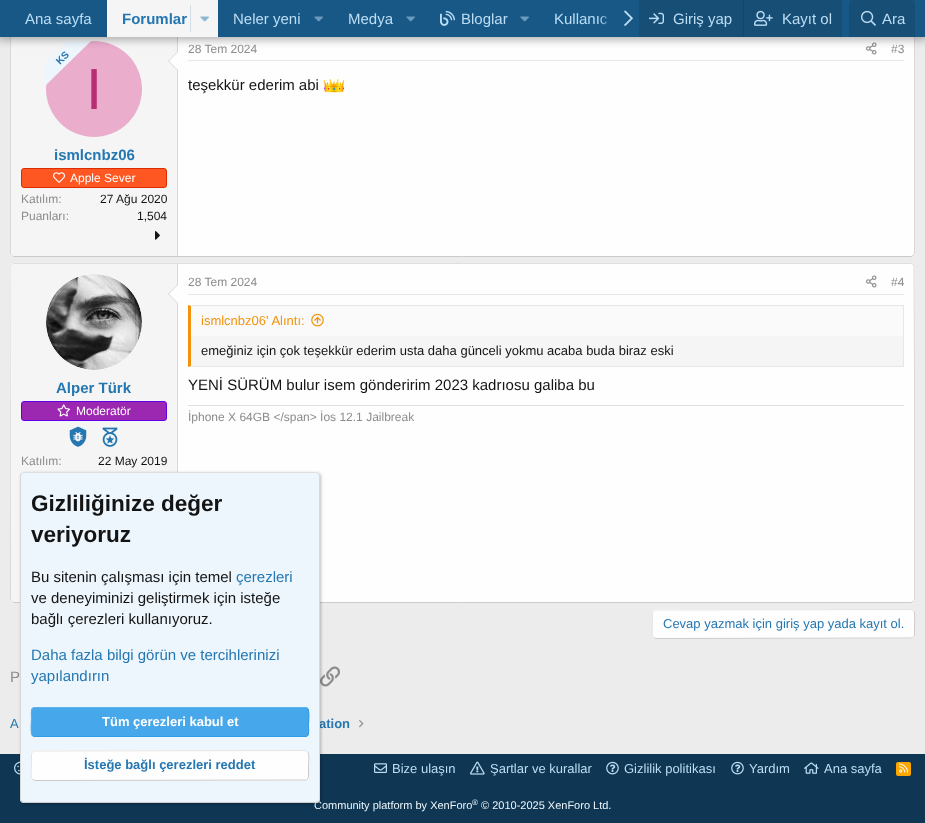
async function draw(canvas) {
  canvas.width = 925
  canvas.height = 823
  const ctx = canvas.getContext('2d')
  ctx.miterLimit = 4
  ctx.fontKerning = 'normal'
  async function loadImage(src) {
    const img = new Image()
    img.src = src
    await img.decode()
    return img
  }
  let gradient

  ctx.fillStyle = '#ececec'
  ctx.fillRect(0, 0, 925, 823)
  ctx.fillStyle = '#fefefe'
  ctx.beginPath()
  ctx.roundRect(10, 30, 905, 227, 4)
  ctx.fill()
  ctx.beginPath()
  ctx.moveTo(913.5, 31.5)
  ctx.bezierCurveTo(914, 32, 914.5, 33, 914.5, 34)
  ctx.lineTo(914.5, 253)
  ctx.bezierCurveTo(914.5, 254, 914, 255, 913.5, 255.5)
  ctx.strokeStyle = '#d8d8d8'
  ctx.stroke()
  ctx.beginPath()
  ctx.moveTo(913.5, 255.5)
  ctx.lineTo(911, 256.5)
  ctx.lineTo(14, 256.5)
  ctx.lineTo(11.5, 255.5)
  ctx.strokeStyle = '#cbcbcb'
  ctx.stroke()
  ctx.beginPath()
  ctx.moveTo(11.5, 255.5)
  ctx.bezierCurveTo(11, 255, 10.5, 254, 10.5, 253)
  ctx.lineTo(10.5, 34)
  ctx.bezierCurveTo(10.5, 33, 11, 32, 11.5, 31.5)
  ctx.strokeStyle = '#d8d8d8'
  ctx.stroke()
  ctx.fillStyle = '#f5f5f5'
  ctx.beginPath()
  ctx.roundRect(11, 31, 167, 225, [3, 0, 0, 3])
  ctx.fill()
  ctx.fillStyle = '#d8d8d8'
  ctx.fillRect(177, 31, 1, 225)
  ctx.fillStyle = '#ebadcc'
  ctx.beginPath()
  ctx.arc(94, 89, 48, 0, 2 * Math.PI)
  ctx.fill()
  ctx.save()
  ctx.beginPath()
  ctx.rect(46, 41, 48, 48)
  ctx.clip()
  ctx.fillStyle = '#edf6fd'
  ctx.beginPath()
  ctx.moveTo(35, 74)
  ctx.lineTo(79, 30)
  ctx.lineTo(91, 41)
  ctx.lineTo(46, 85)
  ctx.closePath()
  ctx.fill()
  ctx.restore()
  ctx.fillStyle = '#d8d8d8'
  ctx.beginPath()
  ctx.moveTo(178, 51)
  ctx.lineTo(178, 71)
  ctx.lineTo(168, 61)
  ctx.closePath()
  ctx.fill()
  ctx.fillStyle = '#fefefe'
  ctx.beginPath()
  ctx.moveTo(178, 52)
  ctx.lineTo(178, 70)
  ctx.lineTo(169, 61)
  ctx.closePath()
  ctx.fill()
  ctx.drawImage(await loadImage('image9.png'), 866, 42, 11, 13)
  ctx.fillStyle = '#0000004d'
  ctx.filter = 'blur(4px)'
  ctx.beginPath()
  ctx.rect(-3, -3, 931, 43)
  ctx.fill()
  ctx.filter = 'none'
  ctx.fillStyle = '#185886'
  ctx.fillRect(0, 0, 925, 37)
  ctx.font = '15px Liberation Sans'
  ctx.fillStyle = '#bcdef5'
  ctx.fillText('Ana sayfa', 25, 24)
  ctx.fillStyle = '#f5f5f5'
  ctx.fillRect(107, 0, 111, 37)
  ctx.font = 'bold 15px Liberation Sans'
  ctx.fillStyle = '#2577b1'
  ctx.fillText('Forumlar', 122, 24)
  ctx.fillStyle = '#d1dfe9'
  ctx.fillRect(190, 5, 1, 27)
  ctx.drawImage(await loadImage('image0.png'), 200, 16, 9, 6)
  ctx.font = '15px Liberation Sans'
  ctx.fillStyle = '#bcdef5'
  ctx.fillText('Neler yeni', 233, 24)
  ctx.drawImage(await loadImage('image1.png'), 314, 16, 9, 6)
  ctx.fillText('Medya', 348, 24)
  ctx.drawImage(await loadImage('image1.png'), 406, 16, 9, 6)
  ctx.drawImage(await loadImage('image2.png'), 440, 10, 15, 16)
  ctx.fillText('Bloglar', 461, 24)
  ctx.drawImage(await loadImage('image1.png'), 520, 16, 9, 6)
  ctx.fillText('Kullanıc', 554, 24)
  gradient = ctx.createLinearGradient(599, 19, 639, 19)
  gradient.addColorStop(0, '#18588600')
  gradient.addColorStop(0.33, '#185886')
  ctx.fillStyle = gradient
  ctx.fillRect(600, 16, 7, 9)
  ctx.drawImage(await loadImage('image3.png'), 624, 10, 9, 16)
  ctx.fillStyle = '#174e75'
  ctx.fillRect(639, 0, 203, 37)
  ctx.drawImage(await loadImage('image4.png'), 649, 12, 15, 12)
  ctx.fillStyle = '#bcdef5'
  ctx.fillText('Giriş yap', 673, 24)
  ctx.fillStyle = '#174566'
  ctx.fillRect(743, 0, 1, 37)
  ctx.drawImage(await loadImage('image5.png'), 754, 10, 19, 16)
  ctx.fillStyle = '#bcdef5'
  ctx.fillText('Kayıt ol', 782, 24)
  ctx.fillStyle = '#174e75'
  ctx.beginPath()
  ctx.roundRect(849, 0, 66, 37, [4, 4, 0, 0])
  ctx.fill()
  ctx.drawImage(await loadImage('image6.png'), 861, 10, 15, 16)
  ctx.fillStyle = '#bcdef5'
  ctx.fillText('Ara', 882, 24)
  ctx.font = 'bold 10px Liberation Sans'
  ctx.fillStyle = '#2577b1'
  ctx.save()
  ctx.translate(60, 65)
  ctx.rotate(-45 * Math.PI / 180)
  ctx.fillText('KS', 0, 0)
  ctx.restore()
  ctx.font = '58px Liberation Sans'
  ctx.fillStyle = '#b82e73'
  ctx.fillText('I', 86, 109)
  ctx.font = 'bold 15px Liberation Sans'
  ctx.fillStyle = '#2577b1'
  ctx.fillText('ismlcnbz06', 54, 160)
  ctx.fillStyle = '#ff5722'
  ctx.beginPath()
  ctx.roundRect(21.5, 168.5, 145, 19, 2.5)
  ctx.fill()
  ctx.strokeStyle = '#dd2c00'
  ctx.stroke()
  ctx.drawImage(await loadImage('image7.png'), 53, 172, 12, 11)
  ctx.font = '12px Liberation Sans'
  ctx.fillStyle = '#fff'
  ctx.fillText('Apple Sever', 70, 182)
  ctx.fillStyle = '#8c8c8c'
  ctx.fillText('Katılım:', 21, 203)
  ctx.fillStyle = '#141414'
  ctx.fillText('27 Ağu 2020', 100, 203)
  ctx.fillStyle = '#8c8c8c'
  ctx.fillText('Puanları:', 21, 220)
  ctx.fillStyle = '#141414'
  ctx.fillText('1,504', 137, 220)
  ctx.drawImage(await loadImage('image8.png'), 155, 231, 5, 9)
  ctx.fillStyle = '#e7e7e7'
  ctx.fillRect(188, 60, 716, 1)
  ctx.fillStyle = '#8c8c8c'
  ctx.fillText('28 Tem 2024', 188, 53)
  ctx.fillText('#3', 891, 53)
  ctx.font = '15px Liberation Sans'
  ctx.fillStyle = '#141414'
  ctx.fillText('teşekkür ederim abi', 188, 90)
  ctx.drawImage(await loadImage('image10.png'), 323, 79, 22, 14)
  ctx.fillStyle = '#fefefe'
  ctx.beginPath()
  ctx.roundRect(10, 263, 905, 340, 4)
  ctx.fill()
  ctx.beginPath()
  ctx.moveTo(11.5, 264.5)
  ctx.lineTo(14, 263.5)
  ctx.lineTo(911, 263.5)
  ctx.lineTo(913.5, 264.5)
  ctx.strokeStyle = '#dfdfdf'
  ctx.stroke()
  ctx.beginPath()
  ctx.moveTo(913.5, 264.5)
  ctx.lineTo(914, 265.5)
  ctx.lineTo(914.5, 377.5)
  ctx.lineTo(914.5, 599)
  ctx.lineTo(913.5, 601.5)
  ctx.strokeStyle = '#d8d8d8'
  ctx.stroke()
  ctx.beginPath()
  ctx.moveTo(913.5, 601.5)
  ctx.lineTo(911, 602.5)
  ctx.lineTo(14, 602.5)
  ctx.lineTo(11.5, 601.5)
  ctx.strokeStyle = '#cbcbcb'
  ctx.stroke()
  ctx.beginPath()
  ctx.moveTo(11.5, 601.5)
  ctx.lineTo(10.5, 599)
  ctx.lineTo(11, 265.5)
  ctx.lineTo(11.5, 264.5)
  ctx.strokeStyle = '#d8d8d8'
  ctx.stroke()
  ctx.fillStyle = '#f5f5f5'
  ctx.beginPath()
  ctx.roundRect(11, 264, 167, 338, [3, 0, 0, 3])
  ctx.fill()
  ctx.fillStyle = '#d8d8d8'
  ctx.fillRect(177, 264, 1, 208)
  ctx.fillStyle = '#fefefe'
  ctx.beginPath()
  ctx.arc(94, 322, 48, 0, 2 * Math.PI)
  ctx.fill()
  ctx.drawImage(await loadImage('image11.png'), 46, 274, 96, 96)
  ctx.fillStyle = '#d8d8d8'
  ctx.beginPath()
  ctx.moveTo(178, 284)
  ctx.lineTo(178, 304)
  ctx.lineTo(168, 294)
  ctx.closePath()
  ctx.fill()
  ctx.fillStyle = '#fefefe'
  ctx.beginPath()
  ctx.moveTo(178, 285)
  ctx.lineTo(178, 303)
  ctx.lineTo(169, 294)
  ctx.closePath()
  ctx.fill()
  ctx.font = 'bold 15px Liberation Sans'
  ctx.fillStyle = '#2577b1'
  ctx.fillText('Alper Türk', 56, 393)
  ctx.fillStyle = '#9c27b0'
  ctx.beginPath()
  ctx.roundRect(21.5, 401.5, 145, 19, 2.5)
  ctx.fill()
  ctx.strokeStyle = '#6200ea'
  ctx.stroke()
  ctx.drawImage(await loadImage('image12.png'), 57, 404, 13, 13)
  ctx.font = '12px Liberation Sans'
  ctx.fillStyle = '#fff'
  ctx.fillText('Moderatör', 76, 415)
  ctx.drawImage(await loadImage('image13.png'), 69, 426, 18, 21)
  ctx.drawImage(await loadImage('image14.png'), 102, 427, 16, 20)
  ctx.fillStyle = '#8c8c8c'
  ctx.fillText('Katılım:', 21, 465)
  ctx.fillStyle = '#141414'
  ctx.fillText('22 May 2019', 98, 465)
  ctx.fillStyle = '#e7e7e7'
  ctx.fillRect(188, 294, 716, 1)
  ctx.fillStyle = '#8c8c8c'
  ctx.fillText('28 Tem 2024', 188, 286)
  ctx.drawImage(await loadImage('image9.png'), 866, 275, 11, 13)
  ctx.fillText('#4', 891, 286)
  ctx.fillStyle = '#f5f5f5'
  ctx.fillRect(191, 336, 712, 30)
  ctx.fillStyle = '#e7e7e7'
  ctx.beginPath()
  ctx.moveTo(188, 305)
  ctx.lineTo(904, 305)
  ctx.lineTo(903, 306)
  ctx.lineTo(191, 306)
  ctx.closePath()
  ctx.fill()
  ctx.fillRect(903, 305, 1, 62)
  ctx.beginPath()
  ctx.moveTo(904, 367)
  ctx.lineTo(188, 367)
  ctx.lineTo(191, 366)
  ctx.lineTo(903, 366)
  ctx.closePath()
  ctx.fill()
  ctx.fillStyle = '#f2930d'
  ctx.beginPath()
  ctx.moveTo(188, 367)
  ctx.lineTo(188, 305)
  ctx.lineTo(191, 306)
  ctx.lineTo(191, 366)
  ctx.closePath()
  ctx.fill()
  ctx.fillStyle = '#fafafa'
  ctx.fillRect(191, 306, 712, 30)
  ctx.font = '13px Liberation Sans'
  ctx.fillStyle = '#f2930d'
  ctx.fillText('ismlcnbz06\' Alıntı:', 201, 325)
  ctx.drawImage(await loadImage('image15.png'), 311, 313, 13, 14)
  ctx.fillStyle = '#141414'
  ctx.fillText('emeğiniz için çok teşekkür ederim usta daha günceli yokmu acaba buda biraz eski', 201, 355)
  ctx.font = '15px Liberation Sans'
  ctx.fillText('YENİ SÜRÜM bulur isem gönderirim 2023 kadrıosu galiba bu', 188, 390)
  ctx.fillStyle = '#dfdfdf'
  ctx.fillRect(188, 405, 716, 1)
  ctx.font = '12px Liberation Sans'
  ctx.fillStyle = '#8c8c8c'
  ctx.fillText('İphone X 64GB <\/span> İos 12.1 Jailbreak', 188, 421)
  ctx.fillStyle = '#fefefe'
  ctx.beginPath()
  ctx.roundRect(652, 609, 263, 30, 4)
  ctx.fill()
  ctx.beginPath()
  ctx.moveTo(913.5, 610.5)
  ctx.bezierCurveTo(915.5, 612.5, 914.5, 621, 914.5, 624)
  ctx.lineTo(914.5, 631.5)
  ctx.bezierCurveTo(914.5, 633.5, 915, 637, 912.5, 638)
  ctx.lineTo(656, 638.5)
  ctx.lineTo(653.5, 637.5)
  ctx.strokeStyle = '#cbcbcb'
  ctx.stroke()
  ctx.beginPath()
  ctx.moveTo(653.5, 637.5)
  ctx.bezierCurveTo(651.5, 635.5, 652.5, 627, 652.5, 624)
  ctx.lineTo(652.5, 616.5)
  ctx.bezierCurveTo(652.5, 614.5, 652, 611, 654.5, 610)
  ctx.lineTo(911, 609.5)
  ctx.lineTo(913.5, 610.5)
  ctx.strokeStyle = '#e5e5e5'
  ctx.stroke()
  ctx.font = '13px Liberation Sans'
  ctx.fillStyle = '#2577b1'
  ctx.fillText('Cevap yazmak için giriş yap yada kayıt ol.', 663, 628)
  ctx.font = '15px Liberation Sans'
  ctx.fillStyle = '#8c8c8c'
  ctx.fillText('P', 10, 682)
  ctx.drawImage(await loadImage('image16.png'), 320, 666, 20, 21)
  ctx.font = '13px Liberation Sans'
  ctx.fillStyle = '#2577b1'
  ctx.fillText('A', 10, 728)
  ctx.font = 'bold 13px Liberation Sans'
  ctx.fillText('ation', 319, 728)
  ctx.drawImage(await loadImage('image17.png'), 359, 720, 5, 8)
  ctx.fillStyle = '#0f3652'
  ctx.fillRect(0, 754, 925, 69)
  ctx.drawImage(await loadImage('image18.png'), 14, 761, 6, 14)
  ctx.drawImage(await loadImage('image19.png'), 374, 763, 13, 10)
  ctx.font = '13px Liberation Sans'
  ctx.fillStyle = '#bcdef5'
  ctx.fillText('Bize ulaşın', 392, 773)
  ctx.drawImage(await loadImage('image20.png'), 470, 761, 15, 14)
  ctx.fillText('Şartlar ve kurallar', 490, 773)
  ctx.drawImage(await loadImage('image21.png'), 606, 761, 13, 14)
  ctx.fillText('Gizlilik politikası', 624, 773)
  ctx.drawImage(await loadImage('image21.png'), 731, 761, 13, 14)
  ctx.fillText('Yardım', 749, 773)
  ctx.drawImage(await loadImage('image22.png'), 804, 762, 15, 12)
  ctx.fillText('Ana sayfa', 824, 773)
  ctx.fillStyle = '#ffa500'
  ctx.beginPath()
  ctx.roundRect(896, 762, 15, 14, 2)
  ctx.fill()
  ctx.drawImage(await loadImage('image23.png'), 899, 763, 10, 10)
  ctx.font = '11px Liberation Sans'
  ctx.fillStyle = '#edf6fd'
  ctx.fillText('Community platform by XenForo', 314, 809)
  ctx.font = '8px Liberation Sans'
  ctx.fillText('®', 472, 805)
  ctx.font = '11px Liberation Sans'
  ctx.fillText('© 2010-2025 XenForo Ltd.', 481, 809)
  ctx.fillStyle = '#00000040'
  ctx.filter = 'blur(1.5px)'
  ctx.beginPath()
  ctx.roundRect(21, 473, 300, 331, 4)
  ctx.fill()
  ctx.filter = 'none'
  ctx.fillStyle = '#edf6fd'
  ctx.beginPath()
  ctx.roundRect(20, 472, 300, 331, 4)
  ctx.fill()
  ctx.beginPath()
  ctx.moveTo(21.5, 473.5)
  ctx.lineTo(24, 472.5)
  ctx.lineTo(316, 472.5)
  ctx.lineTo(318.5, 473.5)
  ctx.strokeStyle = '#dfdfdf'
  ctx.stroke()
  ctx.beginPath()
  ctx.moveTo(318.5, 473.5)
  ctx.lineTo(319.5, 476)
  ctx.lineTo(319.5, 799)
  ctx.lineTo(318.5, 801.5)
  ctx.strokeStyle = '#d8d8d8'
  ctx.stroke()
  ctx.beginPath()
  ctx.moveTo(318.5, 801.5)
  ctx.lineTo(316, 802.5)
  ctx.lineTo(24, 802.5)
  ctx.lineTo(21.5, 801.5)
  ctx.strokeStyle = '#cbcbcb'
  ctx.stroke()
  ctx.beginPath()
  ctx.moveTo(21.5, 801.5)
  ctx.lineTo(20.5, 799)
  ctx.lineTo(20.5, 476)
  ctx.lineTo(21.5, 473.5)
  ctx.strokeStyle = '#d8d8d8'
  ctx.stroke()
  ctx.font = 'bold 22.5px Liberation Sans'
  ctx.fillStyle = '#141414'
  ctx.fillText('Gizliliğinize değer', 31, 511)
  ctx.fillText('veriyoruz', 31, 542)
  ctx.font = '15px Liberation Sans'
  ctx.fillText('Bu sitenin çalışması için temel', 31, 582)
  ctx.fillStyle = '#2577b1'
  ctx.fillText('çerezleri', 236, 582)
  ctx.fillStyle = '#141414'
  ctx.fillText('ve deneyiminizi geliştirmek için isteğe', 31, 603)
  ctx.fillText('bağlı çerezleri kullanıyoruz.', 31, 624)
  ctx.fillStyle = '#2577b1'
  ctx.fillText('Daha fazla bilgi görün ve tercihlerinizi', 31, 660)
  ctx.fillText('yapılandırın', 31, 681)
  ctx.fillStyle = '#47a7eb'
  ctx.beginPath()
  ctx.roundRect(31, 707, 278, 30, 4)
  ctx.fill()
  ctx.beginPath()
  ctx.moveTo(307.5, 708.5)
  ctx.bezierCurveTo(310, 711, 308.5, 722.5, 308.5, 725.5)
  ctx.bezierCurveTo(308.5, 728.5, 310, 736.5, 305, 736.5)
  ctx.lineTo(35, 736.5)
  ctx.lineTo(32.5, 735.5)
  ctx.strokeStyle = '#309ce8'
  ctx.stroke()
  ctx.beginPath()
  ctx.moveTo(32.5, 735.5)
  ctx.bezierCurveTo(30, 733, 31.5, 721.5, 31.5, 718.5)
  ctx.bezierCurveTo(31.5, 715.5, 30, 707.5, 35, 707.5)
  ctx.lineTo(305, 707.5)
  ctx.lineTo(307.5, 708.5)
  ctx.strokeStyle = '#5eb2ed'
  ctx.stroke()
  ctx.font = 'bold 13px Liberation Sans'
  ctx.fillStyle = '#fff'
  ctx.fillText('Tüm çerezleri kabul et', 102, 726)
  ctx.fillStyle = '#fefefe'
  ctx.beginPath()
  ctx.roundRect(31, 750, 278, 31, 4)
  ctx.fill()
  ctx.beginPath()
  ctx.moveTo(307.5, 751.5)
  ctx.bezierCurveTo(309.5, 754, 308.5, 762.5, 308.5, 765.5)
  ctx.lineTo(308.5, 773)
  ctx.bezierCurveTo(308.5, 775.5, 309, 779, 306.5, 780)
  ctx.lineTo(35, 780.5)
  ctx.lineTo(32.5, 779.5)
  ctx.strokeStyle = '#cbcbcb'
  ctx.stroke()
  ctx.beginPath()
  ctx.moveTo(32.5, 779.5)
  ctx.bezierCurveTo(30.5, 777, 31.5, 768.5, 31.5, 765.5)
  ctx.lineTo(31.5, 758)
  ctx.bezierCurveTo(31.5, 755.5, 31, 752, 33.5, 751)
  ctx.lineTo(305, 750.5)
  ctx.lineTo(307.5, 751.5)
  ctx.strokeStyle = '#e5e5e5'
  ctx.stroke()
  ctx.fillStyle = '#2577b1'
  ctx.fillText('İsteğe bağlı çerezleri reddet', 84, 769)
}

draw(document.querySelector('canvas'))
